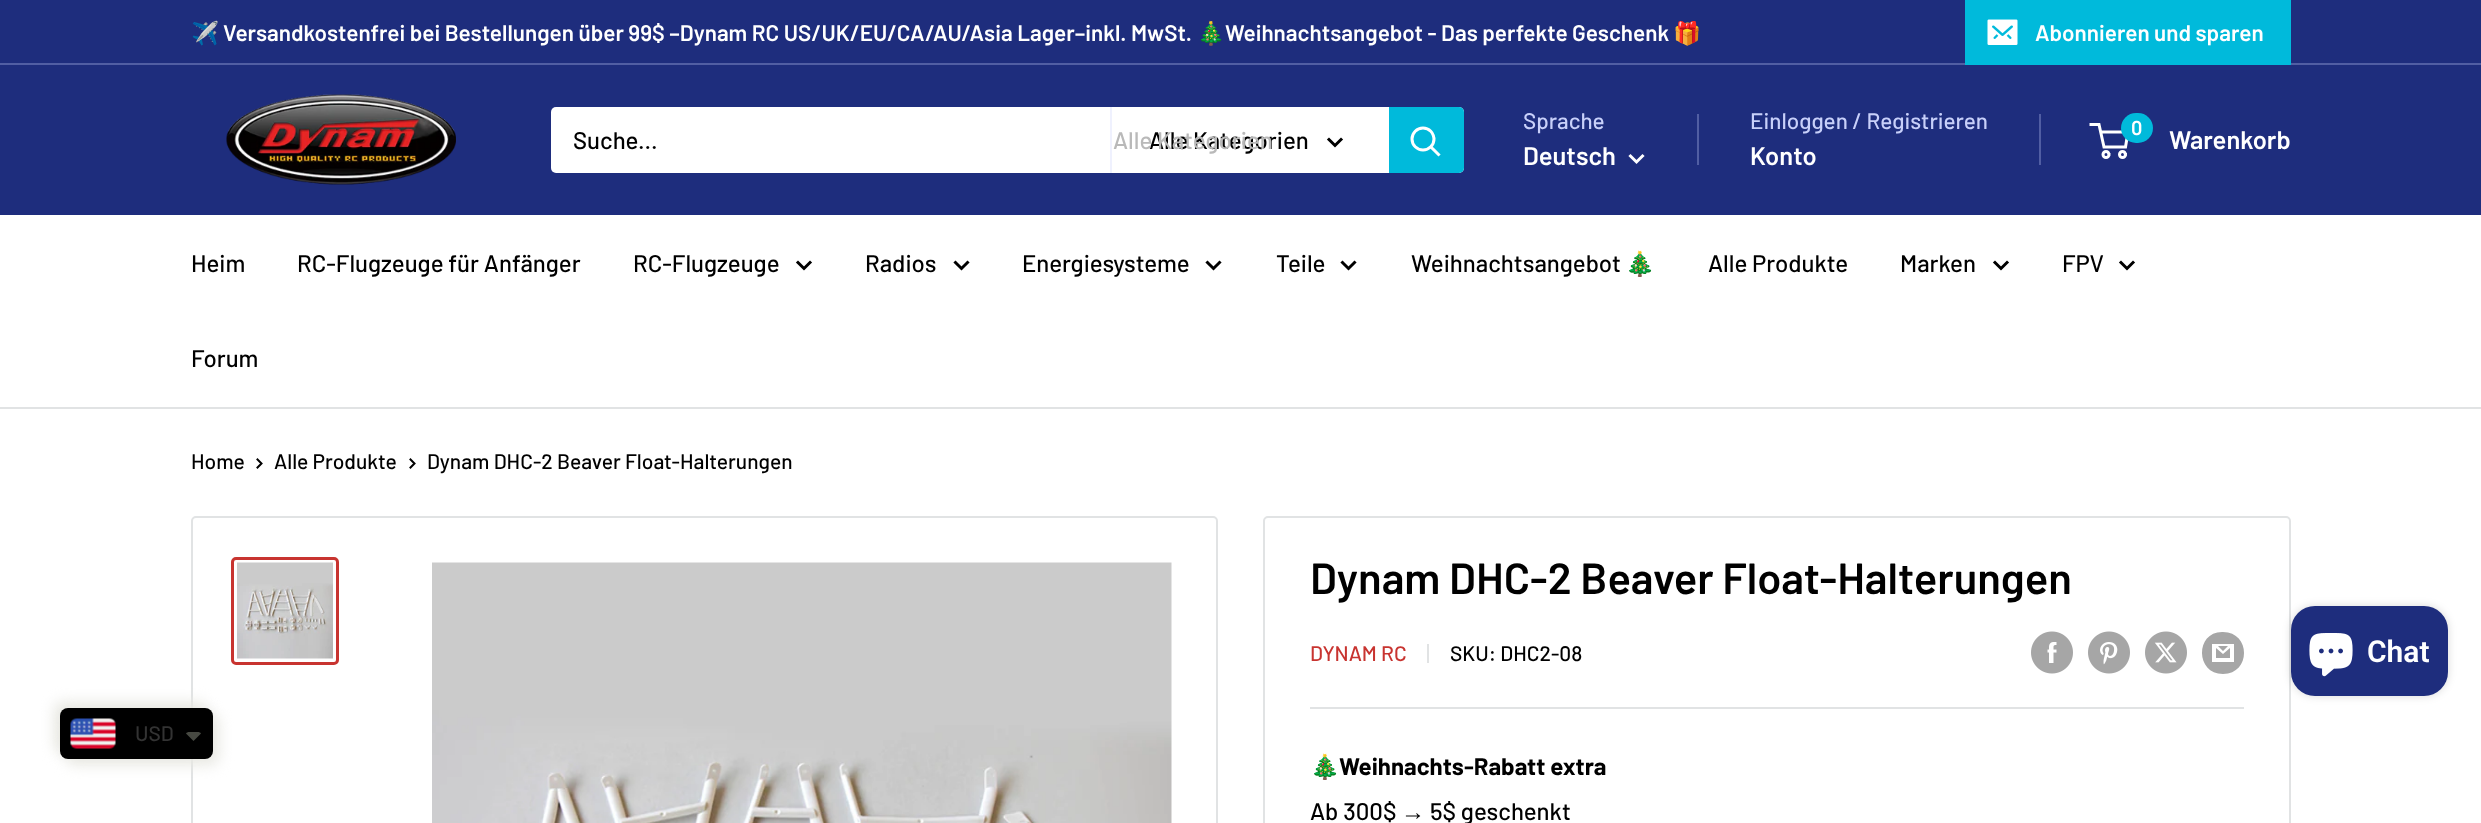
async function draw(canvas) {
  canvas.width = 2481
  canvas.height = 823
  const ctx = canvas.getContext('2d')
  ctx.miterLimit = 4
  ctx.fontKerning = 'normal'
  async function loadImage(src) {
    const img = new Image()
    img.src = src
    await img.decode()
    return img
  }

  ctx.fillStyle = '#fff'
  ctx.fillRect(0, 0, 2481, 823)
  ctx.fillStyle = '#1e2d7d'
  ctx.fillRect(0, 0, 2481, 63)
  ctx.fillStyle = '#515ea3'
  ctx.fillRect(0, 63, 2481, 2)
  ctx.font = 'bold 22.5px Noto Color Emoji'
  ctx.fillStyle = '#fff'
  ctx.fillText('✈️', 191, 41)
  ctx.font = '600 22.5px Barlow'
  ctx.fillText('Versandkostenfrei bei Bestellungen über 99$ –Dynam RC US/UK/EU/CA/AU/Asia Lager–inkl. MwSt.', 223, 41)
  ctx.font = 'bold 22.5px Noto Color Emoji'
  ctx.fillText('🎄', 1197, 41)
  ctx.font = '600 22.5px Barlow'
  ctx.fillText('Weihnachtsangebot - Das perfekte Geschenk', 1225, 41)
  ctx.font = 'bold 22.5px Noto Color Emoji'
  ctx.fillText('🎁', 1673, 41)
  ctx.fillStyle = '#00badb'
  ctx.beginPath()
  ctx.moveTo(1965, 63)
  ctx.lineTo(1965, 65)
  ctx.lineTo(2291, 65)
  ctx.lineTo(2291, 2)
  ctx.lineTo(2290, 2)
  ctx.lineTo(2290, 63)
  ctx.closePath()
  ctx.fill()
  ctx.fillRect(1965, 0, 326, 63)
  ctx.drawImage(await loadImage('image0.png'), 1987, 19, 31, 26)
  ctx.font = '600 22.5px Barlow'
  ctx.fillStyle = '#fff'
  ctx.fillText('Abonnieren und sparen', 2035, 41)
  ctx.fillStyle = '#1e2d7d'
  ctx.fillRect(0, 65, 2481, 150)
  ctx.drawImage(await loadImage('image1.png'), 226, 94, 230, 91)
  ctx.fillStyle = '#fff'
  ctx.beginPath()
  ctx.roundRect(551, 107, 913, 66, 5)
  ctx.fill()
  ctx.font = '500 24px Barlow'
  ctx.fillStyle = '#000'
  ctx.fillText('Suche...', 573, 149)
  ctx.fillStyle = '#eff1fe'
  ctx.fillRect(1110, 107, 2, 66)
  ctx.fillStyle = '#000'
  ctx.fillText('Alle Kategorien', 1149, 149)
  ctx.fillStyle = '#b9b9b9'
  ctx.fillText('Alle Kategorien', 1113, 149)
  ctx.beginPath()
  ctx.moveTo(1341, 139.5)
  ctx.lineTo(1335, 145.5)
  ctx.lineTo(1329, 139.5)
  ctx.strokeStyle = '#000'
  ctx.lineWidth = 3
  ctx.lineCap = 'square'
  ctx.stroke()
  ctx.fillStyle = '#00badb'
  ctx.beginPath()
  ctx.roundRect(1389, 107, 75, 66, [0, 5, 5, 0])
  ctx.fill()
  ctx.beginPath()
  ctx.moveTo(1438.5, 154.5)
  ctx.lineTo(1431, 147)
  ctx.strokeStyle = '#fff'
  ctx.stroke()
  ctx.beginPath()
  ctx.arc(1423, 139, 11, 0, 2 * Math.PI)
  ctx.stroke()
  ctx.font = '500 22.5px Barlow'
  ctx.fillStyle = '#c8d0fa'
  ctx.fillText('Sprache', 1523, 129)
  ctx.font = '600 25.5px Barlow'
  ctx.fillStyle = '#fff'
  ctx.fillText('Deutsch', 1523, 165)
  ctx.beginPath()
  ctx.moveTo(1642.5, 156)
  ctx.lineTo(1636.5, 162)
  ctx.lineTo(1630.5, 156)
  ctx.stroke()
  ctx.fillStyle = '#515ea3'
  ctx.fillRect(1697, 114, 2, 51)
  ctx.font = '500 22.5px Barlow'
  ctx.fillStyle = '#c8d0fa'
  ctx.fillText('Einloggen / Registrieren', 1750, 129)
  ctx.fillStyle = '#515ea3'
  ctx.fillRect(2039, 114, 2, 51)
  ctx.font = '600 25.5px Barlow'
  ctx.fillStyle = '#fff'
  ctx.fillText('Konto', 1750, 165)
  ctx.beginPath()
  ctx.arc(2106, 154.5, 3, 0, 2 * Math.PI)
  ctx.stroke()
  ctx.beginPath()
  ctx.arc(2122.5, 154.5, 3, 0, 2 * Math.PI)
  ctx.stroke()
  ctx.beginPath()
  ctx.moveTo(2100.5, 132)
  ctx.lineTo(2128, 132)
  ctx.lineTo(2125.5, 147)
  ctx.lineTo(2104, 147)
  ctx.lineTo(2099, 124.5)
  ctx.lineTo(2089.5, 124.5)
  ctx.lineCap = 'butt'
  ctx.stroke()
  ctx.fillStyle = '#00badb'
  ctx.beginPath()
  ctx.roundRect(2121, 113, 32, 30, 15)
  ctx.fill()
  ctx.font = '600 20px Barlow'
  ctx.fillStyle = '#fff'
  ctx.fillText('0', 2131, 135)
  ctx.font = '600 25.5px Barlow'
  ctx.fillText('Warenkorb', 2169, 149)
  ctx.fillStyle = '#e1e3e4'
  ctx.fillRect(0, 407, 2481, 2)
  ctx.font = '500 24px Barlow'
  ctx.fillStyle = '#000'
  ctx.fillText('Heim', 191, 272)
  ctx.fillText('RC-Flugzeuge für Anfänger', 297, 272)
  ctx.fillText('RC-Flugzeuge', 633, 272)
  ctx.beginPath()
  ctx.moveTo(810, 262.5)
  ctx.lineTo(804, 268.5)
  ctx.lineTo(798, 262.5)
  ctx.strokeStyle = '#000'
  ctx.lineCap = 'square'
  ctx.stroke()
  ctx.fillText('Radios', 865, 272)
  ctx.beginPath()
  ctx.moveTo(967.5, 262.5)
  ctx.lineTo(961.5, 268.5)
  ctx.lineTo(955.5, 262.5)
  ctx.stroke()
  ctx.fillText('Energiesysteme', 1022, 272)
  ctx.beginPath()
  ctx.moveTo(1219.5, 262.5)
  ctx.lineTo(1213.5, 268.5)
  ctx.lineTo(1207.5, 262.5)
  ctx.stroke()
  ctx.fillText('Teile', 1276, 272)
  ctx.beginPath()
  ctx.moveTo(1354.5, 262.5)
  ctx.lineTo(1348.5, 268.5)
  ctx.lineTo(1342.5, 262.5)
  ctx.stroke()
  ctx.fillText('Weihnachtsangebot', 1411, 272)
  ctx.font = '24px Noto Color Emoji'
  ctx.fillText('🎄', 1625, 272)
  ctx.font = '500 24px Barlow'
  ctx.fillText('Alle Produkte', 1708, 272)
  ctx.fillText('Marken', 1900, 272)
  ctx.beginPath()
  ctx.moveTo(2007, 262.5)
  ctx.lineTo(2001, 268.5)
  ctx.lineTo(1995, 262.5)
  ctx.stroke()
  ctx.fillText('FPV', 2062, 272)
  ctx.beginPath()
  ctx.moveTo(2133, 262.5)
  ctx.lineTo(2127, 268.5)
  ctx.lineTo(2121, 262.5)
  ctx.stroke()
  ctx.fillText('Forum', 191, 367)
  ctx.font = '500 21px Barlow'
  ctx.fillText('Home', 191, 469)
  ctx.beginPath()
  ctx.moveTo(257.5, 459.5)
  ctx.lineTo(261.5, 463.5)
  ctx.lineTo(257.5, 467.5)
  ctx.lineWidth = 2
  ctx.stroke()
  ctx.fillText('Alle Produkte', 274, 469)
  ctx.beginPath()
  ctx.moveTo(410.5, 459.5)
  ctx.lineTo(414.5, 463.5)
  ctx.lineTo(410.5, 467.5)
  ctx.stroke()
  ctx.fillText('Dynam DHC-2 Beaver Float-Halterungen', 427, 469)
  ctx.beginPath()
  ctx.roundRect(192, 517, 1025, 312, 4)
  ctx.strokeStyle = '#e1e3e4'
  ctx.stroke()
  ctx.beginPath()
  ctx.roundRect(232.5, 558.5, 105, 105, 3.5)
  ctx.strokeStyle = '#c83430'
  ctx.lineWidth = 3
  ctx.stroke()
  ctx.drawImage(await loadImage('image2.png'), 237, 562, 96, 97)
  ctx.drawImage(await loadImage('image3.png'), 432, 562, 740, 261)
  ctx.beginPath()
  ctx.roundRect(1264, 517, 1026, 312, 4)
  ctx.strokeStyle = '#e1e3e4'
  ctx.lineWidth = 2
  ctx.stroke()
  ctx.font = '600 43.5px Barlow'
  ctx.fillText('Dynam DHC-2 Beaver Float-Halterungen', 1310, 594)
  ctx.font = '500 21px Barlow'
  ctx.fillStyle = '#c83430'
  ctx.fillText('DYNAM RC', 1310, 661)
  ctx.fillStyle = '#e1e3e4'
  ctx.fillRect(1427, 644, 2, 19)
  ctx.fillStyle = '#000'
  ctx.fillText('SKU: DHC2-08', 1450, 661)
  ctx.drawImage(await loadImage('image4.png'), 2031, 631, 42, 43)
  ctx.drawImage(await loadImage('image5.png'), 2088, 631, 42, 43)
  ctx.drawImage(await loadImage('image6.png'), 2145, 631, 42, 43)
  ctx.fillStyle = '#a6a6a6'
  ctx.beginPath()
  ctx.moveTo(2223, 674)
  ctx.bezierCurveTo(2195, 674, 2195, 631, 2223, 632)
  ctx.bezierCurveTo(2251, 632, 2251, 674, 2223, 674)
  ctx.closePath()
  ctx.moveTo(2218, 646)
  ctx.lineTo(2228, 646)
  ctx.lineTo(2223, 651)
  ctx.closePath()
  ctx.moveTo(2230, 648)
  ctx.lineTo(2230, 658)
  ctx.lineTo(2216, 658)
  ctx.lineTo(2216, 648)
  ctx.lineTo(2223, 654)
  ctx.closePath()
  ctx.moveTo(2234, 644)
  ctx.lineTo(2212, 644)
  ctx.lineTo(2212, 662)
  ctx.lineTo(2234, 662)
  ctx.closePath()
  ctx.fill()
  ctx.fillStyle = '#e1e3e4'
  ctx.fillRect(1310, 707, 934, 2)
  ctx.font = 'bold 24px Noto Color Emoji'
  ctx.fillStyle = '#000'
  ctx.fillText('🎄', 1310, 775)
  ctx.font = 'bold 24px Barlow'
  ctx.fillText('Weihnachts-Rabatt extra', 1339, 775)
  ctx.font = '500 24px Barlow'
  ctx.fillText('Ab 300$', 1310, 820)
  ctx.font = '24px Liberation Sans'
  ctx.fillText('→', 1401, 820)
  ctx.font = '500 24px Barlow'
  ctx.fillText('5$ geschenkt', 1430, 820)
  ctx.fillStyle = '#00000026'
  ctx.filter = 'blur(4px)'
  ctx.beginPath()
  ctx.roundRect(2291, 606, 157, 90, 24)
  ctx.fill()
  ctx.filter = 'none'
  ctx.fillStyle = '#1e2d7d'
  ctx.beginPath()
  ctx.roundRect(2291, 606, 157, 90, 24)
  ctx.fill()
  ctx.drawImage(await loadImage('image7.png'), 2309, 633, 44, 44)
  ctx.font = '600 30px Roboto'
  ctx.fillStyle = '#fff'
  ctx.fillText('Chat', 2367, 662)
  ctx.fillStyle = '#e8e8e2'
  ctx.filter = 'blur(7px)'
  ctx.beginPath()
  ctx.roundRect(54, 702, 153, 51, 8)
  ctx.fill()
  ctx.filter = 'none'
  ctx.filter = 'blur(7px)'
  ctx.beginPath()
  ctx.roundRect(66, 714, 153, 51, 8)
  ctx.fill()
  ctx.filter = 'none'
  ctx.fillStyle = '#000'
  ctx.beginPath()
  ctx.roundRect(60, 708, 153, 51, 8)
  ctx.fill()
  ctx.drawImage(await loadImage('image8.png'), 70, 718, 46, 31)
  ctx.font = '500 21px Barlow'
  ctx.fillStyle = '#333'
  ctx.fillText('USD', 135, 741)
  ctx.fillStyle = '#474942'
  ctx.beginPath()
  ctx.moveTo(189, 732)
  ctx.bezierCurveTo(188, 732, 186.5, 732.5, 186, 733.5)
  ctx.lineTo(193.5, 741)
  ctx.lineTo(201, 733.5)
  ctx.bezierCurveTo(200.5, 732.5, 199, 732, 198, 732)
  ctx.closePath()
  ctx.fill()
}

draw(document.querySelector('canvas'))
